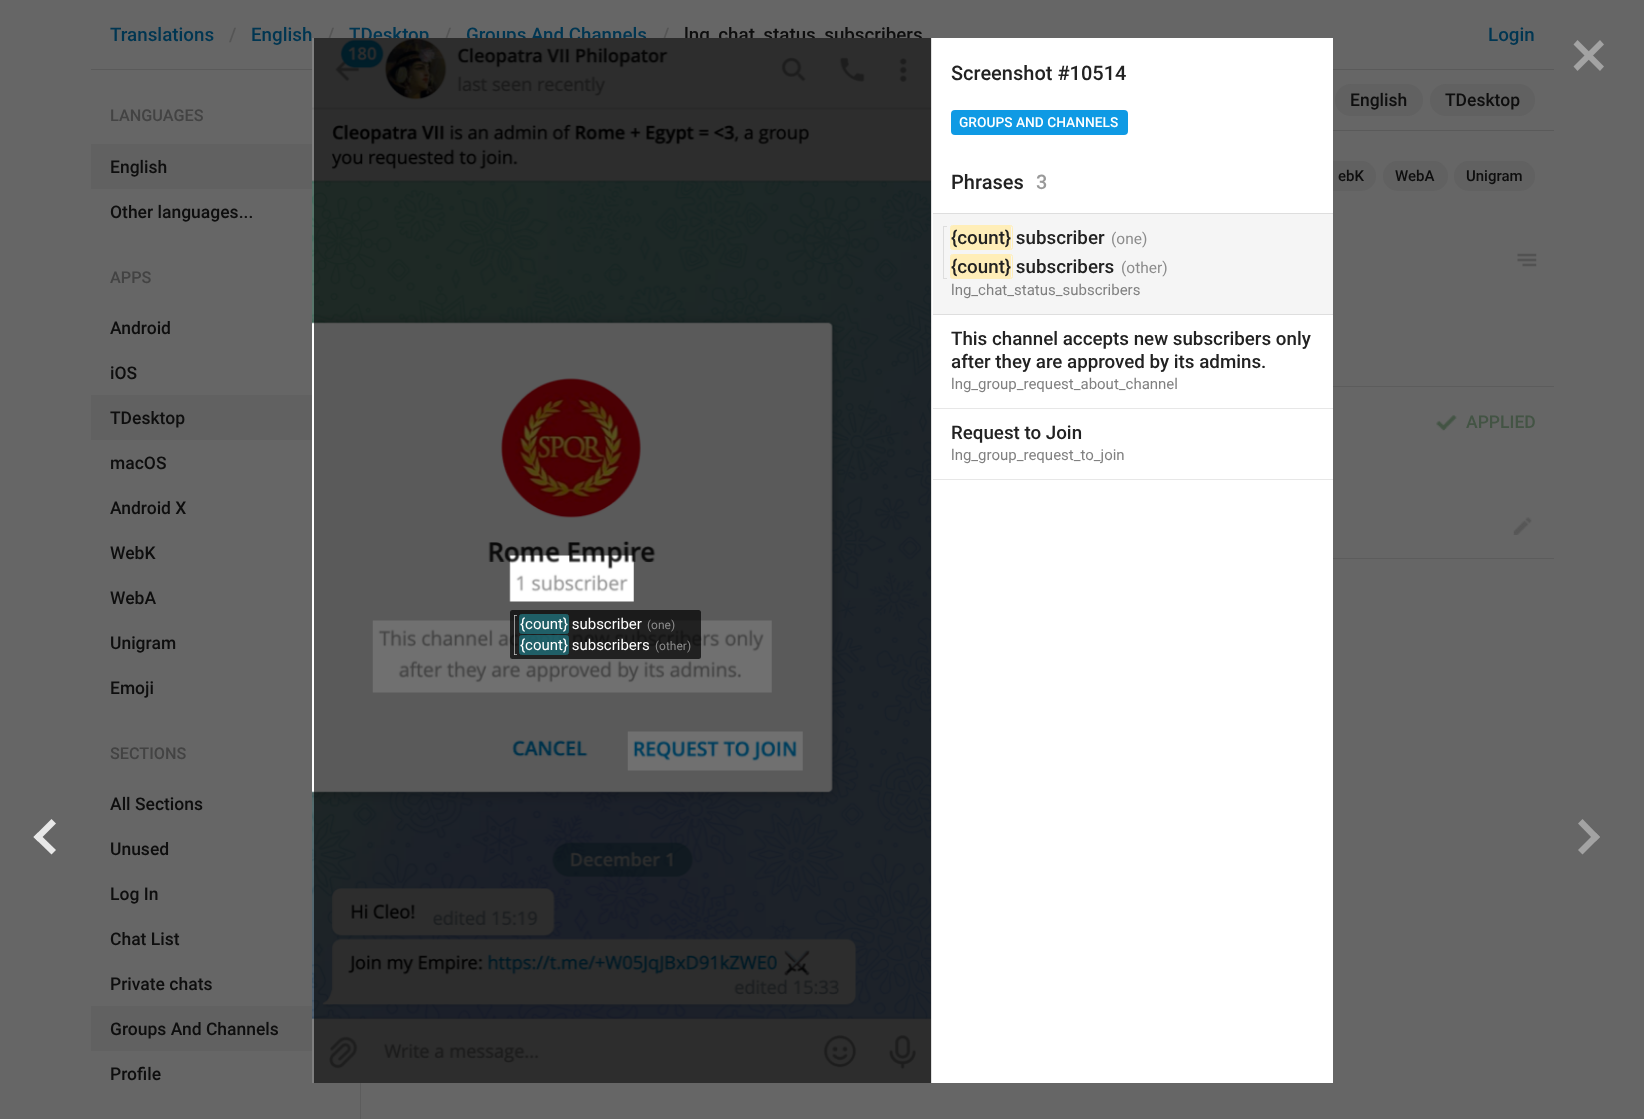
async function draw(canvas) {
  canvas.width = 1644
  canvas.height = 1119
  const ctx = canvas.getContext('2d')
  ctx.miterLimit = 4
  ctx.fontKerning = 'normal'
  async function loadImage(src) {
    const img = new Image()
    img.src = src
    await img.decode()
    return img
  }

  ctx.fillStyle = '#666'
  ctx.fillRect(0, 0, 1644, 1119)
  ctx.fillStyle = '#5a5a5a'
  ctx.fillRect(91, 69, 1463, 1)
  ctx.font = '500 18.75px Roboto'
  ctx.fillStyle = '#003652'
  ctx.fillText('Translations', 110, 41)
  ctx.fillStyle = '#555'
  ctx.fillText('/', 229, 41)
  ctx.fillStyle = '#003652'
  ctx.fillText('English', 251, 41)
  ctx.fillStyle = '#555'
  ctx.fillText('/', 327, 41)
  ctx.fillStyle = '#003652'
  ctx.fillText('TDesktop', 349, 41)
  ctx.fillStyle = '#555'
  ctx.fillText('/', 444, 41)
  ctx.fillStyle = '#003652'
  ctx.fillText('Groups And Channels', 466, 41)
  ctx.fillStyle = '#555'
  ctx.fillText('/', 662, 41)
  ctx.fillStyle = '#0e0e0e'
  ctx.fillText('lng_chat_status_subscribers', 684, 41)
  ctx.fillStyle = '#003652'
  ctx.fillText('Login', 1488, 41)
  ctx.fillStyle = '#5a5a5a'
  ctx.fillRect(930, 130, 624, 1)
  ctx.fillStyle = '#616161'
  ctx.beginPath()
  ctx.roundRect(1335, 84, 88, 32, 16)
  ctx.fill()
  ctx.font = '500 17.5px Roboto'
  ctx.fillStyle = '#0e0e0e'
  ctx.fillText('English', 1350, 106)
  ctx.fillStyle = '#616161'
  ctx.beginPath()
  ctx.roundRect(1430, 84, 105, 32, 16)
  ctx.fill()
  ctx.fillStyle = '#0e0e0e'
  ctx.fillText('TDesktop', 1445, 106)
  ctx.font = '500 16.25px Roboto'
  ctx.fillStyle = '#434343'
  ctx.fillText('LANGUAGES', 110, 121)
  ctx.fillStyle = '#616161'
  ctx.fillRect(91, 144, 221, 45)
  ctx.font = '500 17.5px Roboto'
  ctx.fillStyle = '#0e0e0e'
  ctx.fillText('English', 110, 173)
  ctx.fillText('Other languages...', 110, 218)
  ctx.font = '500 16.25px Roboto'
  ctx.fillStyle = '#434343'
  ctx.fillText('APPS', 110, 283)
  ctx.font = '500 17.5px Roboto'
  ctx.fillStyle = '#0e0e0e'
  ctx.fillText('Android', 110, 334)
  ctx.fillText('iOS', 110, 379)
  ctx.fillStyle = '#616161'
  ctx.fillRect(91, 395, 221, 45)
  ctx.fillStyle = '#0e0e0e'
  ctx.fillText('TDesktop', 110, 424)
  ctx.fillText('macOS', 110, 469)
  ctx.fillText('Android X', 110, 514)
  ctx.fillText('WebK', 110, 559)
  ctx.fillText('WebA', 110, 604)
  ctx.fillText('Unigram', 110, 649)
  ctx.fillText('Emoji', 110, 694)
  ctx.font = '500 16.25px Roboto'
  ctx.fillStyle = '#434343'
  ctx.fillText('SECTIONS', 110, 759)
  ctx.font = '500 17.5px Roboto'
  ctx.fillStyle = '#0e0e0e'
  ctx.fillText('All Sections', 110, 810)
  ctx.fillText('Unused', 110, 855)
  ctx.fillText('Log In', 110, 900)
  ctx.fillText('Chat List', 110, 945)
  ctx.fillText('Private chats', 110, 990)
  ctx.fillStyle = '#616161'
  ctx.fillRect(91, 1006, 221, 45)
  ctx.fillStyle = '#0e0e0e'
  ctx.fillText('Groups And Channels', 110, 1035)
  ctx.fillText('Profile', 110, 1080)
  ctx.fillStyle = '#5c5c5c'
  ctx.fillRect(360, 1083, 1, 36)
  ctx.fillStyle = '#616161'
  ctx.beginPath()
  ctx.roundRect(1313, 161, 63, 30, 15)
  ctx.fill()
  ctx.font = '500 15px Roboto'
  ctx.fillStyle = '#0e0e0e'
  ctx.fillText('ebK', 1338, 181)
  ctx.fillStyle = '#616161'
  ctx.beginPath()
  ctx.roundRect(1383, 161, 65, 30, 15)
  ctx.fill()
  ctx.fillStyle = '#0e0e0e'
  ctx.fillText('WebA', 1395, 181)
  ctx.fillStyle = '#616161'
  ctx.beginPath()
  ctx.roundRect(1454, 161, 81, 30, 15)
  ctx.fill()
  ctx.fillStyle = '#0e0e0e'
  ctx.fillText('Unigram', 1466, 181)
  ctx.strokeStyle = '#665f4a'
  ctx.strokeRect(866.5, 245.5, 74, 28)
  ctx.strokeRect(866.5, 288.5, 74, 27)
  ctx.drawImage(await loadImage('image0.png'), 1517, 253, 20, 14)
  ctx.fillStyle = '#5c5c5c'
  ctx.fillRect(930, 386, 624, 1)
  ctx.save()
  ctx.beginPath()
  ctx.rect(786, 388, 768, 172)
  ctx.clip()
  ctx.beginPath()
  ctx.moveTo(861, 558)
  ctx.lineTo(861, 559)
  ctx.lineTo(1629, 559)
  ctx.lineTo(1629, 389)
  ctx.lineTo(1554, 389)
  ctx.lineTo(1554, 558)
  ctx.closePath()
  ctx.fill()
  ctx.restore()
  ctx.strokeStyle = '#666358'
  ctx.strokeRect(866.5, 409.5, 66, 25)
  ctx.strokeRect(866.5, 443.5, 66, 25)
  ctx.drawImage(await loadImage('image1.png'), 930, 518, 1, 20)
  ctx.drawImage(await loadImage('image2.png'), 1513, 517, 19, 18)
  ctx.drawImage(await loadImage('image3.png'), 1436, 415, 21, 16)
  ctx.font = '500 17.5px Roboto'
  ctx.fillStyle = '#435444'
  ctx.fillText('APPLIED', 1466, 428)
  ctx.drawImage(await loadImage('image4.png'), 312, 38, 619, 1045)
  ctx.fillStyle = '#fff'
  ctx.fillRect(932, 38, 401, 1045)
  ctx.fillStyle = '#e0e0e0'
  ctx.fillRect(931, 38, 1, 1045)
  ctx.font = '500 20px Roboto'
  ctx.fillStyle = '#222'
  ctx.fillText('Screenshot #10514', 951, 80)
  ctx.fillStyle = '#0f9ae4'
  ctx.beginPath()
  ctx.roundRect(951, 110, 177, 25, 4)
  ctx.fill()
  ctx.font = '500 13.75px Roboto'
  ctx.fillStyle = '#fff'
  ctx.fillText('GROUPS AND CHANNELS', 959, 127)
  ctx.font = '500 20px Roboto'
  ctx.fillStyle = '#222'
  ctx.fillText('Phrases', 951, 189)
  ctx.fillStyle = '#999'
  ctx.fillText('3', 1036, 189)
  ctx.fillStyle = '#f5f5f5'
  ctx.fillRect(933, 214, 400, 100)
  ctx.fillStyle = '#dedede'
  ctx.fillRect(933, 213, 400, 1)
  ctx.fillRect(933, 314, 400, 1)
  ctx.fillStyle = '#ddd'
  ctx.fillRect(943, 226, 4, 1)
  ctx.fillRect(943, 278, 4, 1)
  ctx.fillRect(943, 226, 1, 53)
  ctx.beginPath()
  ctx.roundRect(950.5, 225.5, 62, 24, 2)
  ctx.strokeStyle = '#ffeeb8'
  ctx.stroke()
  ctx.fillStyle = '#ffeeb8'
  ctx.beginPath()
  ctx.roundRect(951, 226, 60, 23, 1)
  ctx.fill()
  ctx.font = '500 18.75px Roboto'
  ctx.fillStyle = '#222'
  ctx.fillText('{count} subscriber', 951, 244)
  ctx.font = '15.5px Roboto'
  ctx.fillStyle = '#8c8c8c'
  ctx.fillText('(one)', 1111, 244)
  ctx.beginPath()
  ctx.roundRect(950.5, 254.5, 62, 24, 2)
  ctx.stroke()
  ctx.fillStyle = '#ffeeb8'
  ctx.beginPath()
  ctx.roundRect(951, 255, 60, 23, 1)
  ctx.fill()
  ctx.font = '500 18.75px Roboto'
  ctx.fillStyle = '#222'
  ctx.fillText('{count} subscribers', 951, 273)
  ctx.font = '15.5px Roboto'
  ctx.fillStyle = '#8c8c8c'
  ctx.fillText('(other)', 1121, 273)
  ctx.font = '15px Roboto'
  ctx.fillStyle = '#808080'
  ctx.fillText('lng_chat_status_subscribers', 951, 295)
  ctx.fillStyle = '#e7e7e7'
  ctx.fillRect(933, 408, 400, 1)
  ctx.font = '500 18.75px Roboto'
  ctx.fillStyle = '#222'
  ctx.fillText('This channel accepts new subscribers only', 951, 345)
  ctx.fillText('after they are approved by its admins.', 951, 368)
  ctx.font = '15px Roboto'
  ctx.fillStyle = '#808080'
  ctx.fillText('lng_group_request_about_channel', 951, 389)
  ctx.fillStyle = '#e7e7e7'
  ctx.fillRect(933, 479, 400, 1)
  ctx.font = '500 18.75px Roboto'
  ctx.fillStyle = '#222'
  ctx.fillText('Request to Join', 951, 439)
  ctx.font = '15px Roboto'
  ctx.fillStyle = '#808080'
  ctx.fillText('lng_group_request_to_join', 951, 460)
  ctx.drawImage(await loadImage('image6.png'), 372, 620, 400, 73)
  ctx.drawImage(await loadImage('image7.png'), 627, 731, 176, 40)
  ctx.fillStyle = '#0000008f'
  ctx.fillRect(314, 38, 617, 1045)
  ctx.drawImage(await loadImage('image5.png'), 509, 555, 125, 47)
  ctx.fillStyle = '#000000b3'
  ctx.beginPath()
  ctx.roundRect(510, 610, 191, 49, 2.5)
  ctx.fill()
  ctx.fillStyle = '#979797'
  ctx.fillRect(514, 615, 3, 1)
  ctx.fillStyle = '#999'
  ctx.fillRect(514, 654, 3, 1)
  ctx.fillStyle = '#ccccccb3'
  ctx.fillRect(514, 615, 1, 40)
  ctx.beginPath()
  ctx.roundRect(519.5, 614.5, 49, 19, 2)
  ctx.strokeStyle = '#217b86b3'
  ctx.stroke()
  ctx.fillStyle = '#217b86b3'
  ctx.beginPath()
  ctx.roundRect(520, 615, 48, 18, 1)
  ctx.fill()
  ctx.fillStyle = '#fff'
  ctx.fillText('{count} subscriber', 520, 629)
  ctx.font = '12px Roboto'
  ctx.fillStyle = '#8c8c8c'
  ctx.fillText('(one)', 647, 629)
  ctx.beginPath()
  ctx.roundRect(519.5, 635.5, 49, 19, 2)
  ctx.stroke()
  ctx.fillStyle = '#217b86b3'
  ctx.beginPath()
  ctx.roundRect(520, 636, 48, 18, 1)
  ctx.fill()
  ctx.font = '15px Roboto'
  ctx.fillStyle = '#fff'
  ctx.fillText('{count} subscribers', 520, 650)
  ctx.font = '12px Roboto'
  ctx.fillStyle = '#8c8c8c'
  ctx.fillText('(other)', 655, 650)
  ctx.fillStyle = '#a3a3a3'
  ctx.beginPath()
  ctx.moveTo(1577.5, 40)
  ctx.lineTo(1604, 66.5)
  ctx.lineTo(1600, 71)
  ctx.lineTo(1573.5, 44.5)
  ctx.closePath()
  ctx.fill()
  ctx.beginPath()
  ctx.moveTo(1573.5, 66.5)
  ctx.lineTo(1600, 40)
  ctx.lineTo(1604, 44.5)
  ctx.lineTo(1577.5, 71)
  ctx.closePath()
  ctx.fill()
  ctx.beginPath()
  ctx.moveTo(1582.5, 819)
  ctx.lineTo(1600, 837)
  ctx.lineTo(1595.5, 841.5)
  ctx.lineTo(1578, 823.5)
  ctx.closePath()
  ctx.fill()
  ctx.beginPath()
  ctx.moveTo(1578, 850)
  ctx.lineTo(1595.5, 832.5)
  ctx.lineTo(1600, 837)
  ctx.lineTo(1582.5, 854.5)
  ctx.closePath()
  ctx.fill()
  ctx.fillStyle = '#e8e8e8'
  ctx.beginPath()
  ctx.moveTo(38, 832.5)
  ctx.lineTo(56, 850)
  ctx.lineTo(51.5, 854.5)
  ctx.lineTo(33.5, 837)
  ctx.closePath()
  ctx.fill()
  ctx.beginPath()
  ctx.moveTo(33.5, 837)
  ctx.lineTo(51.5, 819)
  ctx.lineTo(56, 823.5)
  ctx.lineTo(38, 841.5)
  ctx.closePath()
  ctx.fill()
}

draw(document.querySelector('canvas'))
